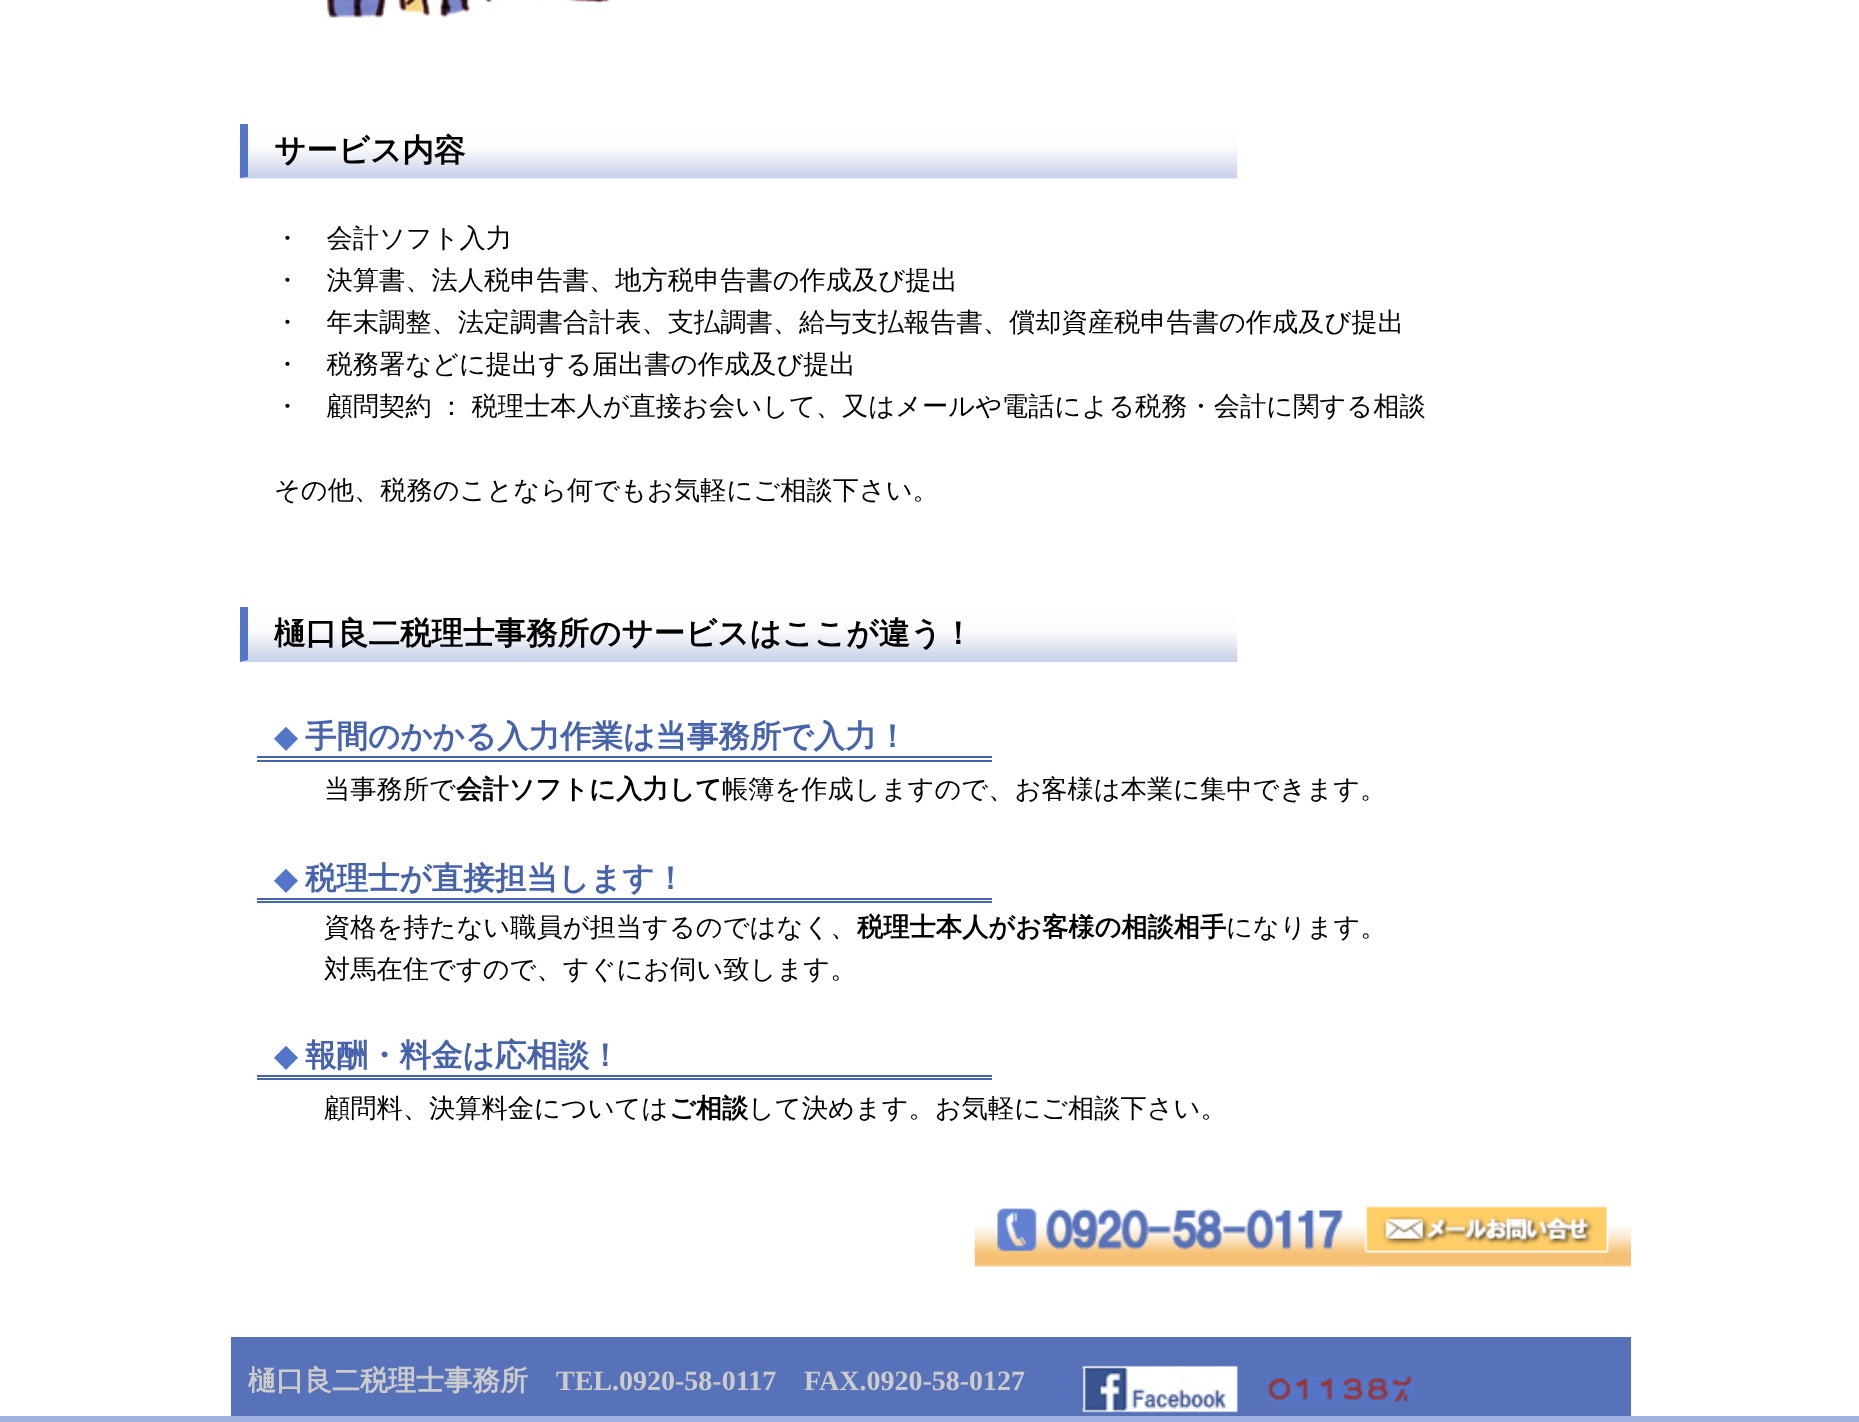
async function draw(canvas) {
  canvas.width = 1859
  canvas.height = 1422
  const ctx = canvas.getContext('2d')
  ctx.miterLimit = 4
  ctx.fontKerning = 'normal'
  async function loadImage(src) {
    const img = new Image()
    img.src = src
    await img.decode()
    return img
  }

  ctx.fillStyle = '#fff'
  ctx.fillRect(0, 0, 1859, 1422)
  ctx.fillStyle = '#9eb3e0'
  ctx.fillRect(0, 1416, 1859, 6)
  ctx.drawImage(await loadImage('image0.png'), 326, 0, 284, 19)
  ctx.fillStyle = '#e9edf8'
  ctx.fillRect(240, 178, 997, 1)
  ctx.drawImage(await loadImage('image1.png'), 239, 124, 999, 54)
  ctx.fillStyle = '#c6d1ec'
  ctx.beginPath()
  ctx.moveTo(1237, 178)
  ctx.lineTo(240, 178)
  ctx.lineTo(248, 177)
  ctx.lineTo(1237, 177)
  ctx.closePath()
  ctx.fill()
  ctx.fillStyle = '#5376c8'
  ctx.beginPath()
  ctx.moveTo(240, 178)
  ctx.lineTo(240, 124)
  ctx.lineTo(248, 124)
  ctx.lineTo(248, 177)
  ctx.closePath()
  ctx.fill()
  ctx.font = 'bold 31.5px WenQuanYi Zen Hei'
  ctx.fillStyle = '#000'
  ctx.fillText('サービス内容', 274, 161)
  ctx.font = '500 26.25px WenQuanYi Zen Hei'
  ctx.fillText('・　会計ソフト入力', 274, 247)
  ctx.fillText('・　決算書、法人税申告書、地方税申告書の作成及び提出', 274, 289)
  ctx.fillText('・　年末調整、法定調書合計表、支払調書、給与支払報告書、償却資産税申告書の作成及び提出', 274, 331)
  ctx.fillText('・　税務署などに提出する届出書の作成及び提出', 274, 373)
  ctx.wordSpacing = '-1px'
  ctx.fillText('・　顧問契約 ： 税理士本人が直接お会いして、又はメールや電話による税務・会計に関する相談', 274, 415)
  ctx.wordSpacing = '0px'
  ctx.fillText('その他、税務のことなら何でもお気軽にご相談下さい。', 274, 499)
  ctx.drawImage(await loadImage('image1.png'), 239, 607, 999, 54)
  ctx.fillStyle = '#c6d1ec'
  ctx.beginPath()
  ctx.moveTo(1237, 662)
  ctx.lineTo(240, 662)
  ctx.lineTo(248, 660)
  ctx.lineTo(1237, 660)
  ctx.closePath()
  ctx.fill()
  ctx.fillStyle = '#5376c8'
  ctx.beginPath()
  ctx.moveTo(240, 662)
  ctx.lineTo(240, 607)
  ctx.lineTo(248, 607)
  ctx.lineTo(248, 660)
  ctx.closePath()
  ctx.fill()
  ctx.font = 'bold 31.5px WenQuanYi Zen Hei'
  ctx.fillStyle = '#000'
  ctx.fillText('樋口良二税理士事務所のサービスはここが違う！', 274, 644)
  ctx.fillStyle = '#4763ab'
  ctx.fillRect(257, 756, 735, 2)
  ctx.fillRect(257, 760, 735, 2)
  ctx.font = 'bold 30px DejaVu Sans'
  ctx.fillStyle = '#5376c8'
  ctx.fillText('◆', 274, 747)
  ctx.font = 'bold 31.5px WenQuanYi Zen Hei'
  ctx.fillStyle = '#4763ab'
  ctx.fillText('手間のかかる入力作業は当事務所で入力！', 305, 747)
  ctx.font = '500 26.25px WenQuanYi Zen Hei'
  ctx.fillStyle = '#000'
  ctx.fillText('当事務所で', 324, 798)
  ctx.font = 'bold 26.25px WenQuanYi Zen Hei'
  ctx.fillText('会計ソフトに入力して', 456, 798)
  ctx.font = '500 26.25px WenQuanYi Zen Hei'
  ctx.fillText('帳簿を作成しますので、お客様は本業に集中できます。', 722, 798)
  ctx.fillStyle = '#4763ab'
  ctx.fillRect(257, 898, 735, 2)
  ctx.fillRect(257, 901, 735, 2)
  ctx.font = 'bold 30px DejaVu Sans'
  ctx.fillStyle = '#5376c8'
  ctx.fillText('◆', 274, 889)
  ctx.font = 'bold 31.5px WenQuanYi Zen Hei'
  ctx.fillStyle = '#4763ab'
  ctx.fillText('税理士が直接担当します！', 305, 889)
  ctx.font = '500 26.25px WenQuanYi Zen Hei'
  ctx.fillStyle = '#000'
  ctx.fillText('資格を持たない職員が担当するのではなく、', 324, 936)
  ctx.font = 'bold 26.25px WenQuanYi Zen Hei'
  ctx.fillText('税理士本人がお客様の相談相手', 857, 936)
  ctx.font = '500 26.25px WenQuanYi Zen Hei'
  ctx.fillText('になります。', 1226, 936)
  ctx.fillText('対馬在住ですので、すぐにお伺い致します。', 324, 978)
  ctx.fillStyle = '#4763ab'
  ctx.fillRect(257, 1075, 735, 2)
  ctx.fillRect(257, 1078, 735, 2)
  ctx.font = 'bold 30px DejaVu Sans'
  ctx.fillStyle = '#5376c8'
  ctx.fillText('◆', 274, 1066)
  ctx.font = 'bold 31.5px WenQuanYi Zen Hei'
  ctx.fillStyle = '#4763ab'
  ctx.fillText('報酬・料金は応相談！', 305, 1066)
  ctx.font = '500 26.25px WenQuanYi Zen Hei'
  ctx.fillStyle = '#000'
  ctx.fillText('顧問料、決算料金については', 324, 1117)
  ctx.font = 'bold 26.25px WenQuanYi Zen Hei'
  ctx.fillText('ご相談', 669, 1117)
  ctx.font = '500 26.25px WenQuanYi Zen Hei'
  ctx.fillText('して決めます。お気軽にご相談下さい。', 748, 1117)
  ctx.drawImage(await loadImage('image2.png'), 974, 1206, 657, 61)
  ctx.fillStyle = '#5772b9'
  ctx.fillRect(231, 1337, 1400, 79)
  ctx.font = 'bold 28px WenQuanYi Zen Hei'
  ctx.fillStyle = '#ccc'
  ctx.fillText('樋口良二税理士事務所', 248, 1390)
  ctx.font = 'bold 28px Liberation Serif'
  ctx.fillText('TEL.0920-58-0117', 556, 1390)
  ctx.fillText('FAX.0920-58-0127', 804, 1390)
  ctx.drawImage(await loadImage('image3.png'), 1081, 1365, 157, 48)
  ctx.drawImage(await loadImage('image4.png'), 1267, 1376, 147, 26)
}

draw(document.querySelector('canvas'))
